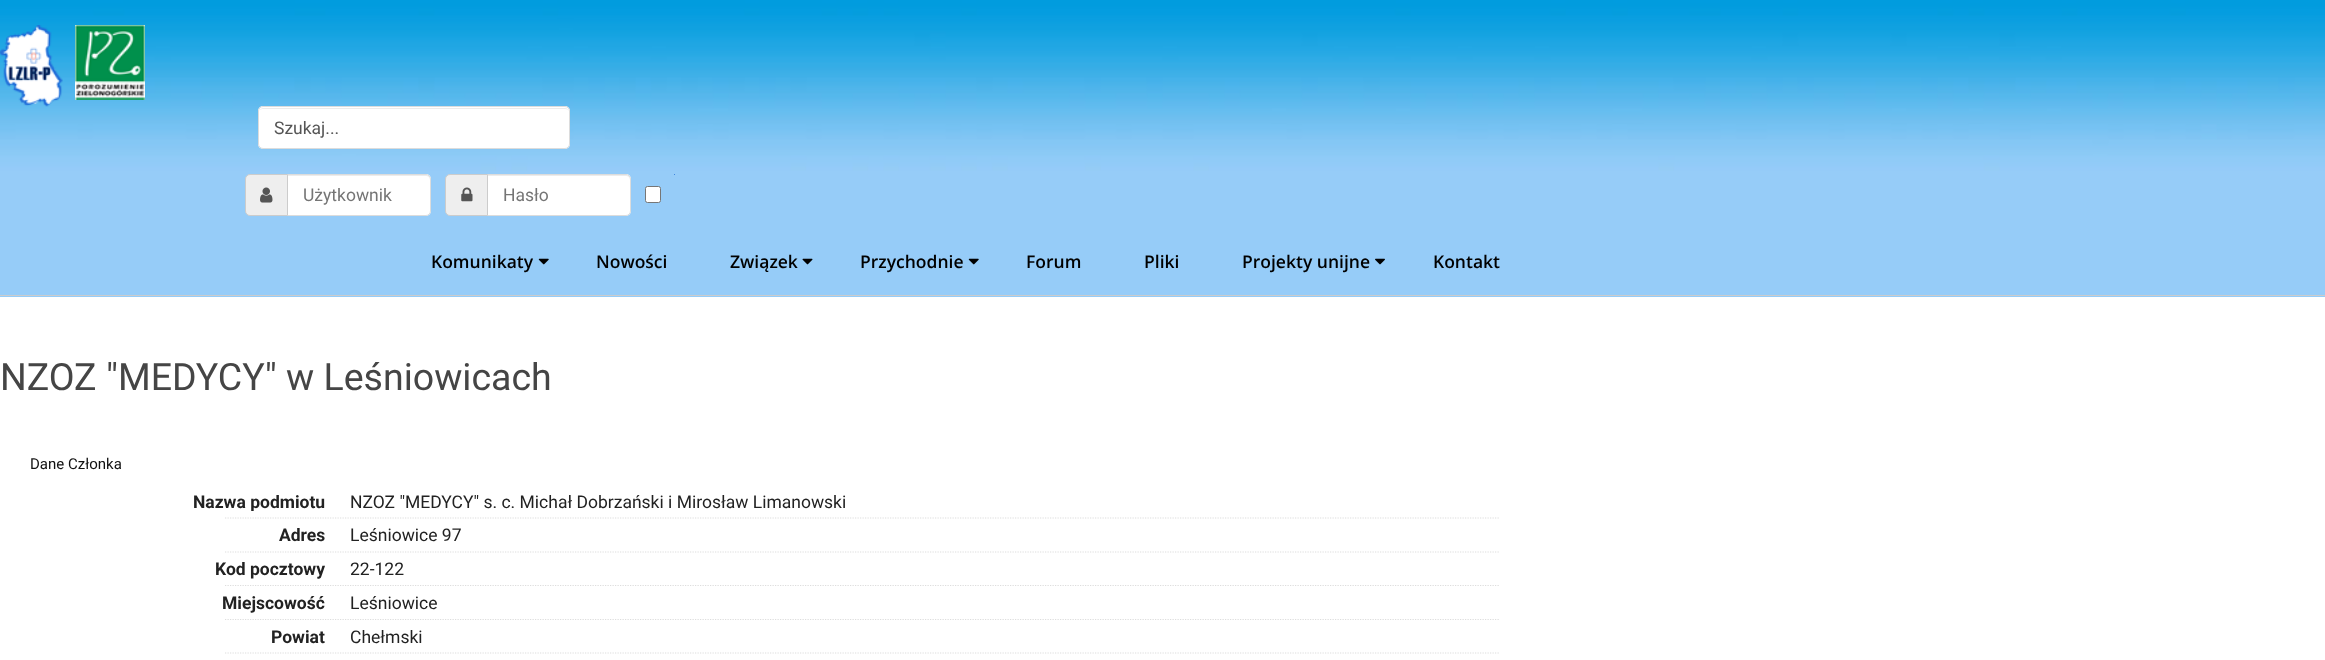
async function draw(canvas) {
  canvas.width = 2325
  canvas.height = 660
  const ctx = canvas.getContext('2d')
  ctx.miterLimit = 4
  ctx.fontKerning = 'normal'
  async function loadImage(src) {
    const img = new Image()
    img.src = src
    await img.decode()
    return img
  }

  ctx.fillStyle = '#fff'
  ctx.fillRect(0, 0, 2325, 660)
  ctx.drawImage(await loadImage('image0.png'), 0, 0, 2325, 297)
  ctx.fillStyle = '#ccc'
  ctx.fillRect(0, 295, 2325, 1)
  ctx.drawImage(await loadImage('image1.png'), 0, 25, 63, 82)
  ctx.drawImage(await loadImage('image2.png'), 75, 25, 70, 75)
  ctx.fillStyle = '#fff'
  ctx.beginPath()
  ctx.roundRect(258, 106, 312, 43, 5)
  ctx.fill()
  ctx.fillStyle = '#ececec'
  ctx.beginPath()
  ctx.moveTo(262, 109)
  ctx.lineTo(565, 109)
  ctx.bezierCurveTo(567, 109, 569, 110, 569, 112)
  ctx.bezierCurveTo(569, 110, 567, 108, 565, 108)
  ctx.lineTo(263, 108)
  ctx.bezierCurveTo(262, 108, 260, 109, 260, 110)
  ctx.closePath()
  ctx.fill()
  ctx.beginPath()
  ctx.roundRect(258.5, 106.5, 311, 42, 4.5)
  ctx.strokeStyle = '#dcdcdc'
  ctx.stroke()
  ctx.font = '17.5px Roboto'
  ctx.fillStyle = '#555'
  ctx.fillText('Szukaj...', 274, 134)
  ctx.fillStyle = '#fff'
  ctx.beginPath()
  ctx.roundRect(286, 174, 145, 42, [0, 5, 5, 0])
  ctx.fill()
  ctx.fillStyle = '#ececec'
  ctx.beginPath()
  ctx.moveTo(288, 176)
  ctx.lineTo(426, 176)
  ctx.bezierCurveTo(428, 176, 430, 178, 430, 180)
  ctx.lineTo(430, 179)
  ctx.bezierCurveTo(430, 177, 428, 175, 426, 175)
  ctx.lineTo(288, 175)
  ctx.closePath()
  ctx.fill()
  ctx.beginPath()
  ctx.roundRect(286.5, 174.5, 144, 41, [0, 4.5, 4.5, 0])
  ctx.stroke()
  ctx.fillStyle = '#eee'
  ctx.beginPath()
  ctx.roundRect(245.5, 174.5, 42, 41, [4.5, 0, 0, 4.5])
  ctx.fill()
  ctx.strokeStyle = '#ccc'
  ctx.stroke()
  ctx.drawImage(await loadImage('image3.png'), 260, 187, 13, 16)
  ctx.fillStyle = '#757575'
  ctx.fillText('Użytkownik', 303, 201)
  ctx.fillStyle = '#fff'
  ctx.beginPath()
  ctx.roundRect(486, 174, 145, 42, [0, 5, 5, 0])
  ctx.fill()
  ctx.fillStyle = '#ececec'
  ctx.beginPath()
  ctx.moveTo(488, 176)
  ctx.lineTo(626, 176)
  ctx.bezierCurveTo(628, 176, 630, 178, 630, 180)
  ctx.lineTo(630, 179)
  ctx.bezierCurveTo(630, 177, 628, 175, 626, 175)
  ctx.lineTo(488, 175)
  ctx.closePath()
  ctx.fill()
  ctx.beginPath()
  ctx.roundRect(486.5, 174.5, 144, 41, [0, 4.5, 4.5, 0])
  ctx.strokeStyle = '#dcdcdc'
  ctx.stroke()
  ctx.fillStyle = '#eee'
  ctx.beginPath()
  ctx.roundRect(445.5, 174.5, 42, 41, [4.5, 0, 0, 4.5])
  ctx.fill()
  ctx.strokeStyle = '#ccc'
  ctx.stroke()
  ctx.drawImage(await loadImage('image4.png'), 461, 187, 12, 15)
  ctx.fillStyle = '#757575'
  ctx.fillText('Hasło', 503, 201)
  ctx.fillStyle = '#2571d9'
  ctx.beginPath()
  ctx.roundRect(674, 174, 1, 1, [5, 0, 0, 0])
  ctx.fill()
  ctx.fillStyle = '#fff'
  ctx.beginPath()
  ctx.roundRect(645.5, 186.5, 15, 16, 2)
  ctx.fill()
  ctx.strokeStyle = '#767676'
  ctx.stroke()
  ctx.font = '600 17.5px Open Sans'
  ctx.fillStyle = '#000'
  ctx.fillText('Komunikaty', 431, 268)
  ctx.drawImage(await loadImage('image5.png'), 538, 258, 11, 7)
  ctx.fillText('Nowości', 596, 268)
  ctx.fillText('Związek', 730, 268)
  ctx.drawImage(await loadImage('image6.png'), 802, 258, 11, 7)
  ctx.fillText('Przychodnie', 860, 268)
  ctx.drawImage(await loadImage('image5.png'), 968, 258, 11, 7)
  ctx.fillText('Forum', 1026, 268)
  ctx.fillText('Pliki', 1144, 268)
  ctx.fillText('Projekty unijne', 1242, 268)
  ctx.drawImage(await loadImage('image7.png'), 1375, 258, 10, 7)
  ctx.fillText('Kontakt', 1433, 268)
  ctx.font = '37.5px Roboto'
  ctx.fillStyle = '#454545'
  ctx.fillText('NZOZ "MEDYCY" w Leśniowicach', 0, 390)
  ctx.font = '15px Roboto'
  ctx.fillStyle = '#111'
  ctx.fillText('Dane Członka', 30, 469)
  ctx.save()
  ctx.beginPath()
  ctx.rect(0, 491, 325, 20)
  ctx.clip()
  ctx.font = 'bold 17.5px Roboto'
  ctx.fillStyle = '#222'
  ctx.fillText('Nazwa podmiotu', 193, 508)
  ctx.restore()
  ctx.beginPath()
  ctx.moveTo(225, 518)
  ctx.lineTo(1500, 518)
  ctx.strokeStyle = '#ddd'
  ctx.lineWidth = 1.2
  ctx.setLineDash([1.25, 1.25])
  ctx.stroke()
  ctx.font = '17.5px Roboto'
  ctx.fillStyle = '#222'
  ctx.fillText('NZOZ "MEDYCY" s. c. Michał Dobrzański i Mirosław Limanowski', 350, 508)
  ctx.font = 'bold 17.5px Roboto'
  ctx.fillText('Adres', 279, 541)
  ctx.beginPath()
  ctx.moveTo(225, 552)
  ctx.lineTo(1500, 552)
  ctx.stroke()
  ctx.font = '17.5px Roboto'
  ctx.fillText('Leśniowice 97', 350, 541)
  ctx.font = 'bold 17.5px Roboto'
  ctx.fillText('Kod pocztowy', 215, 575)
  ctx.beginPath()
  ctx.moveTo(225, 585.5)
  ctx.lineTo(1500, 585.5)
  ctx.stroke()
  ctx.font = '17.5px Roboto'
  ctx.fillText('22-122', 350, 575)
  ctx.font = 'bold 17.5px Roboto'
  ctx.fillText('Miejscowość', 222, 609)
  ctx.beginPath()
  ctx.moveTo(225, 619.5)
  ctx.lineTo(1500, 619.5)
  ctx.stroke()
  ctx.font = '17.5px Roboto'
  ctx.fillText('Leśniowice', 350, 609)
  ctx.font = 'bold 17.5px Roboto'
  ctx.fillText('Powiat', 271, 643)
  ctx.beginPath()
  ctx.moveTo(225, 653)
  ctx.lineTo(1500, 653)
  ctx.stroke()
  ctx.font = '17.5px Roboto'
  ctx.fillText('Chełmski', 350, 643)
}

draw(document.querySelector('canvas'))
